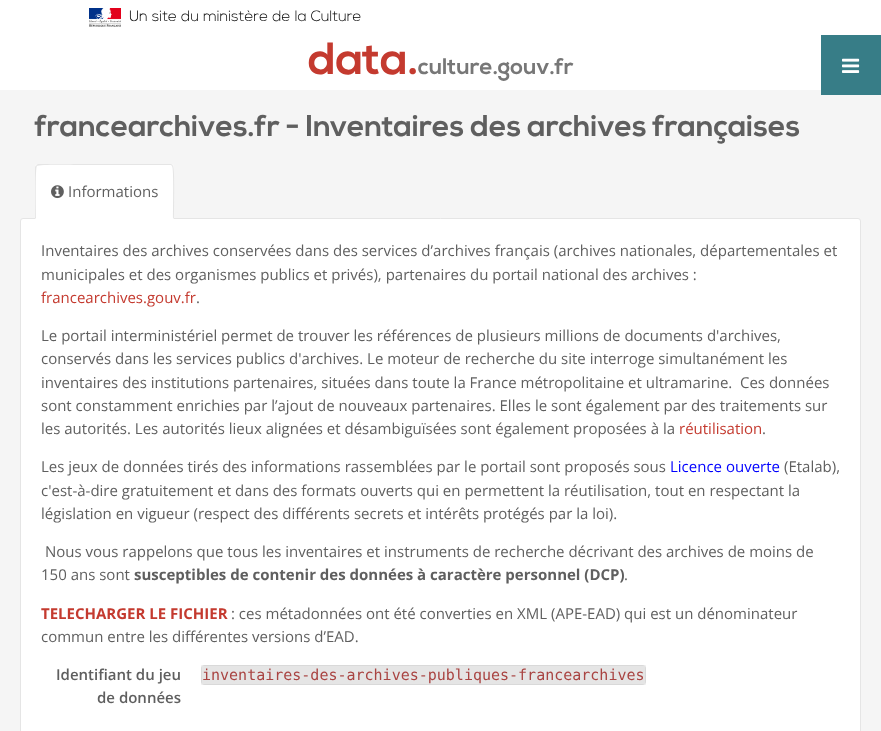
async function draw(canvas) {
  canvas.width = 881
  canvas.height = 731
  const ctx = canvas.getContext('2d')
  ctx.miterLimit = 4
  ctx.fontKerning = 'normal'
  async function loadImage(src) {
    const img = new Image()
    img.src = src
    await img.decode()
    return img
  }

  ctx.fillStyle = '#f5f5f5'
  ctx.fillRect(0, 0, 881, 731)
  ctx.fillStyle = '#fff'
  ctx.fillRect(0, 0, 881, 90)
  ctx.drawImage(await loadImage('image0.png'), 89, 8, 32, 19)
  ctx.font = '300 15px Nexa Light'
  ctx.fillStyle = '#000'
  ctx.fillText('Un site du ministère de la Culture', 129, 21)
  ctx.font = 'bold 45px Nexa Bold'
  ctx.fillStyle = '#c43a2f'
  ctx.fillText('data.', 308, 74)
  ctx.font = 'bold 22.5px Nexa Bold'
  ctx.fillStyle = '#777'
  ctx.fillText('culture.gouv.fr', 418, 74)
  ctx.fillStyle = '#377d87'
  ctx.fillRect(821, 35, 60, 60)
  ctx.drawImage(await loadImage('image1.png'), 842, 58, 18, 15)
  ctx.font = 'bold 30px Nexa Bold'
  ctx.fillStyle = '#5f5f5f'
  ctx.fillText('francearchives.fr - Inventaires des archives françaises', 35, 136)
  ctx.fillStyle = '#fff'
  ctx.beginPath()
  ctx.roundRect(20.5, 218.5, 840, 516, 2.5)
  ctx.fill()
  ctx.strokeStyle = '#e5e5e5'
  ctx.stroke()
  ctx.beginPath()
  ctx.roundRect(35, 164, 139, 55, [3, 3, 0, 0])
  ctx.fill()
  ctx.fillStyle = '#e5e5e5'
  ctx.beginPath()
  ctx.moveTo(38, 164)
  ctx.lineTo(36, 165)
  ctx.lineTo(37, 166)
  ctx.bezierCurveTo(38, 164, 79, 165, 82, 165)
  ctx.lineTo(171, 165)
  ctx.lineTo(172, 166)
  ctx.lineTo(173, 165)
  ctx.lineTo(171, 164)
  ctx.closePath()
  ctx.fill()
  ctx.beginPath()
  ctx.moveTo(174, 219)
  ctx.bezierCurveTo(174, 213, 175, 167, 173, 165)
  ctx.lineTo(172, 166)
  ctx.bezierCurveTo(174, 167, 173, 212, 173, 218)
  ctx.closePath()
  ctx.fill()
  ctx.beginPath()
  ctx.moveTo(35, 219)
  ctx.lineTo(36, 218)
  ctx.bezierCurveTo(36, 212, 35, 167, 37, 166)
  ctx.lineTo(36, 165)
  ctx.lineTo(35, 167)
  ctx.closePath()
  ctx.fill()
  ctx.drawImage(await loadImage('image2.png'), 51, 185, 13, 14)
  ctx.font = '15px Open Sans'
  ctx.fillStyle = '#5f5f5f'
  ctx.fillText('Informations', 68, 197)
  ctx.fillText('Inventaires des archives conservées dans des services d’archives français (archives nationales, départementales et', 41, 256)
  ctx.fillText('municipales et des organismes publics et privés), partenaires du portail national des archives :', 41, 280)
  ctx.fillStyle = '#c43a2f'
  ctx.fillText('francearchives.gouv.fr', 41, 303)
  ctx.fillStyle = '#5f5f5f'
  ctx.fillText('.', 196, 303)
  ctx.fillText('Le portail interministériel permet de trouver les références de plusieurs millions de documents d\'archives,', 41, 341)
  ctx.fillText('conservés dans les services publics d\'archives. Le moteur de recherche du site interroge simultanément les', 41, 364)
  ctx.fillText('inventaires des institutions partenaires, situées dans toute la France métropolitaine et ultramarine.', 41, 388)
  ctx.fillText('Ces données', 740, 388)
  ctx.fillText('sont constamment enrichies par l’ajout de nouveaux partenaires. Elles le sont également par des traitements sur', 41, 411)
  ctx.fillText('les autorités. Les autorités lieux alignées et désambiguïsées sont également proposées à la', 41, 434)
  ctx.fillStyle = '#c43a2f'
  ctx.fillText('réutilisation', 679, 434)
  ctx.fillStyle = '#5f5f5f'
  ctx.fillText('.', 762, 434)
  ctx.fillText('Les jeux de données tirés des informations rassemblées par le portail sont proposés sous', 41, 472)
  ctx.fillStyle = '#00f'
  ctx.fillText('Licence ouverte', 670, 472)
  ctx.fillStyle = '#5f5f5f'
  ctx.fillText('(Etalab),', 784, 472)
  ctx.fillText('c\'est-à-dire gratuitement et dans des formats ouverts qui en permettent la réutilisation, tout en respectant la', 41, 496)
  ctx.fillText('législation en vigueur (respect des différents secrets et intérêts protégés par la loi).', 41, 519)
  ctx.fillText('Nous vous rappelons que tous les inventaires et instruments de recherche décrivant des archives de moins de', 45, 557)
  ctx.fillText('150 ans sont', 41, 580)
  ctx.font = 'bold 15px Open Sans'
  ctx.fillText('susceptibles de contenir des données à caractère personnel (DCP)', 134, 580)
  ctx.font = '15px Open Sans'
  ctx.fillText('.', 624, 580)
  ctx.font = 'bold 15px Open Sans'
  ctx.fillStyle = '#c43a2f'
  ctx.fillText('TELECHARGER LE FICHIER', 41, 619)
  ctx.font = '15px Open Sans'
  ctx.fillStyle = '#5f5f5f'
  ctx.fillText(': ces métadonnées ont été converties en XML (APE-EAD) qui est un dénominateur', 231, 619)
  ctx.fillText('commun entre les différentes versions d’EAD.', 41, 642)
  ctx.font = '600 15px Open Sans'
  ctx.fillText('Identifiant du jeu', 56, 680)
  ctx.fillText('de données', 97, 703)
  ctx.fillStyle = '#e5e5e5'
  ctx.beginPath()
  ctx.roundRect(201, 665, 445, 20, 4)
  ctx.fill()
  ctx.strokeStyle = '#0000000d'
  ctx.strokeRect(201.5, 665.5, 444, 19)
  ctx.font = '15px DejaVu Sans Mono'
  ctx.fillStyle = '#a94442'
  ctx.fillText('inventaires-des-archives-publiques-francearchives', 202, 680)
}

draw(document.querySelector('canvas'))
